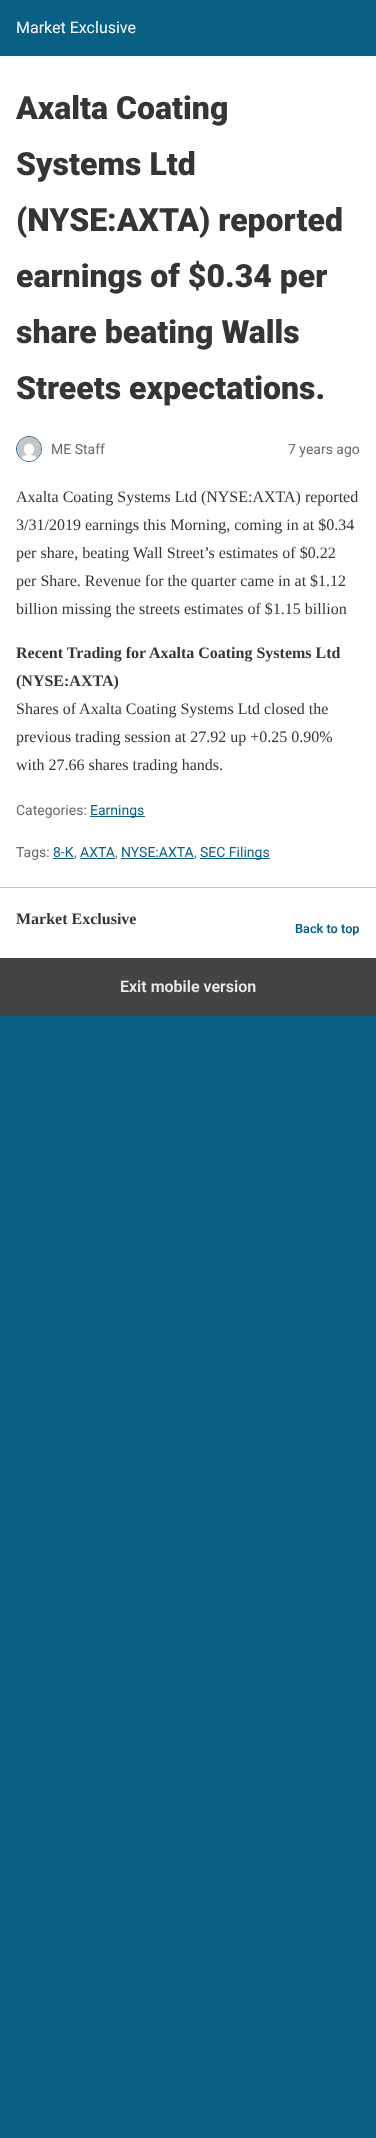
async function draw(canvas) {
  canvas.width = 376
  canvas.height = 2138
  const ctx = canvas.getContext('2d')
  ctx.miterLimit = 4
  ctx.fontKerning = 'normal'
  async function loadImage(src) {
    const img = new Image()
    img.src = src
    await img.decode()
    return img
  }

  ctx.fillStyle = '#0a5f85'
  ctx.fillRect(0, 0, 376, 2138)
  ctx.fillStyle = '#fff'
  ctx.fillRect(0, 56, 376, 902)
  ctx.font = '16px Roboto'
  ctx.fillText('Market Exclusive', 16, 33)
  ctx.font = '900 32px Roboto'
  ctx.fillStyle = '#353535'
  ctx.fillText('Axalta Coating', 16, 119)
  ctx.fillText('Systems Ltd', 16, 175)
  ctx.fillText('(NYSE:AXTA) reported', 16, 231)
  ctx.fillText('earnings of $0.34 per', 16, 287)
  ctx.fillText('share beating Walls', 16, 343)
  ctx.fillText('Streets expectations.', 16, 399)
  ctx.beginPath()
  ctx.arc(29, 449, 12.5, 0, 2 * Math.PI)
  ctx.strokeStyle = '#0a5f85'
  ctx.stroke()
  ctx.drawImage(await loadImage('image0.png'), 17, 437, 24, 24)
  ctx.font = '14px Roboto'
  ctx.fillStyle = '#696969'
  ctx.fillText('ME Staff', 51, 454)
  ctx.fillText('7 years ago', 288, 454)
  ctx.font = '16px Liberation Serif'
  ctx.fillStyle = '#353535'
  ctx.fillText('Axalta Coating Systems Ltd (NYSE:AXTA) reported', 16, 502)
  ctx.fillText('3/31/2019 earnings this Morning, coming in at $0.34', 16, 530)
  ctx.fillText('per share, beating Wall Street’s estimates of $0.22', 16, 558)
  ctx.fillText('per Share. Revenue for the quarter came in at $1.12', 16, 586)
  ctx.fillText('billion missing the streets estimates of $1.15 billion', 16, 614)
  ctx.font = 'bold 16px Liberation Serif'
  ctx.fillText('Recent Trading for Axalta Coating Systems Ltd', 16, 658)
  ctx.fillText('(NYSE:AXTA)', 16, 686)
  ctx.font = '16px Liberation Serif'
  ctx.fillText('Shares of Axalta Coating Systems Ltd closed the', 16, 714)
  ctx.fillText('previous trading session at 27.92 up +0.25 0.90%', 16, 742)
  ctx.fillText('with 27.66 shares trading hands.', 16, 770)
  ctx.font = '14px Roboto'
  ctx.fillStyle = '#696969'
  ctx.fillText('Categories:', 16, 815)
  ctx.fillStyle = '#0a5f85'
  ctx.fillRect(90, 816, 55, 1)
  ctx.fillText('Earnings', 90, 815)
  ctx.fillStyle = '#696969'
  ctx.fillText('Tags:', 16, 857)
  ctx.fillStyle = '#0a5f85'
  ctx.fillText('8-K', 53, 857)
  ctx.fillRect(53, 858, 21, 1)
  ctx.fillStyle = '#696969'
  ctx.fillText(',', 74, 857)
  ctx.fillStyle = '#0a5f85'
  ctx.fillText('AXTA', 80, 857)
  ctx.fillRect(80, 858, 35, 1)
  ctx.fillStyle = '#696969'
  ctx.fillText(',', 115, 857)
  ctx.fillStyle = '#0a5f85'
  ctx.fillText('NYSE:AXTA', 121, 857)
  ctx.fillRect(121, 858, 73, 1)
  ctx.fillStyle = '#696969'
  ctx.fillText(',', 194, 857)
  ctx.fillStyle = '#0a5f85'
  ctx.fillRect(200, 858, 70, 1)
  ctx.fillText('SEC Filings', 200, 857)
  ctx.fillStyle = '#c2c2c2'
  ctx.fillRect(0, 887, 376, 1)
  ctx.font = 'bold 16px Liberation Serif'
  ctx.fillStyle = '#353535'
  ctx.fillText('Market Exclusive', 16, 924)
  ctx.font = '600 12.75px Roboto'
  ctx.fillStyle = '#0a5f85'
  ctx.fillText('Back to top', 295, 933)
  ctx.fillStyle = '#444'
  ctx.fillRect(0, 958, 376, 58)
  ctx.font = '600 16px Roboto'
  ctx.fillStyle = '#eaeaea'
  ctx.fillText('Exit mobile version', 120, 992)
}

draw(document.querySelector('canvas'))
